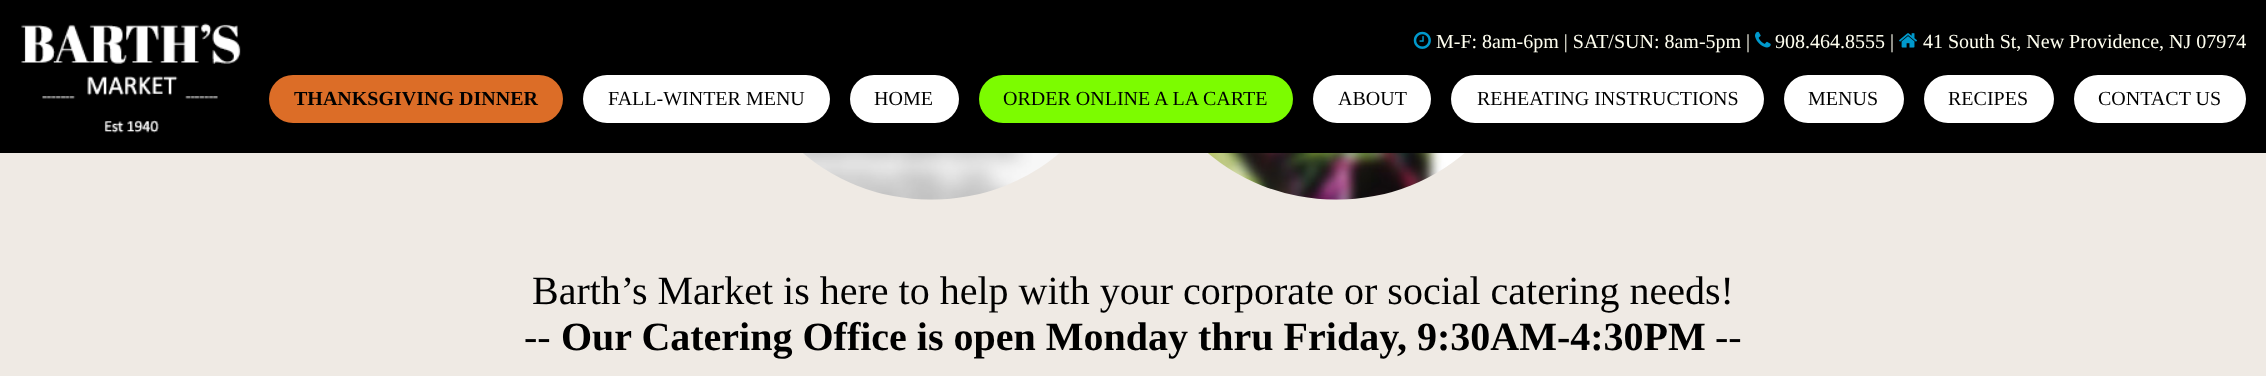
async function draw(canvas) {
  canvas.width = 2266
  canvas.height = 376
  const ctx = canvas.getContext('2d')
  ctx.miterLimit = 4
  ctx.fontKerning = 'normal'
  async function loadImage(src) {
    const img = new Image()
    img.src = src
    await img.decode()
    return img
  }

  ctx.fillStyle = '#efeae4'
  ctx.fillRect(0, 0, 2266, 376)
  ctx.fillStyle = '#000'
  ctx.fillRect(0, 0, 2266, 153)
  ctx.drawImage(await loadImage('image0.png'), 21, 23, 220, 110)
  ctx.drawImage(await loadImage('image1.png'), 1413, 31, 18, 18)
  ctx.font = '20px Liberation Serif'
  ctx.fillStyle = '#fffff0'
  ctx.fillText('M-F: 8am-6pm | SAT/SUN: 8am-5pm |', 1436, 48)
  ctx.drawImage(await loadImage('image2.png'), 1755, 31, 16, 17)
  ctx.fillText('908.464.8555 |', 1775, 48)
  ctx.drawImage(await loadImage('image3.png'), 1899, 33, 18, 15)
  ctx.fillText('41 South St, New Providence, NJ 07974', 1923, 48)
  ctx.fillStyle = '#dc6d27'
  ctx.beginPath()
  ctx.roundRect(269, 75, 294, 48, 24)
  ctx.fill()
  ctx.font = 'bold 20px Liberation Serif'
  ctx.fillStyle = '#000'
  ctx.fillText('THANKSGIVING DINNER', 294, 105)
  ctx.fillStyle = '#fff'
  ctx.beginPath()
  ctx.roundRect(583, 75, 247, 48, 24)
  ctx.fill()
  ctx.font = '20px Liberation Serif'
  ctx.fillStyle = '#000'
  ctx.fillText('FALL-WINTER MENU', 608, 105)
  ctx.fillStyle = '#fff'
  ctx.beginPath()
  ctx.roundRect(850, 75, 109, 48, 24)
  ctx.fill()
  ctx.fillStyle = '#000'
  ctx.fillText('HOME', 874, 105)
  ctx.fillStyle = '#7cfc00'
  ctx.beginPath()
  ctx.roundRect(979, 75, 314, 48, 24)
  ctx.fill()
  ctx.fillStyle = '#000'
  ctx.fillText('ORDER ONLINE A LA CARTE', 1003, 105)
  ctx.fillStyle = '#fff'
  ctx.beginPath()
  ctx.roundRect(1313, 75, 118, 48, 24)
  ctx.fill()
  ctx.fillStyle = '#000'
  ctx.fillText('ABOUT', 1338, 105)
  ctx.fillStyle = '#fff'
  ctx.beginPath()
  ctx.roundRect(1451, 75, 313, 48, 24)
  ctx.fill()
  ctx.fillStyle = '#000'
  ctx.fillText('REHEATING INSTRUCTIONS', 1477, 105)
  ctx.fillStyle = '#fff'
  ctx.beginPath()
  ctx.roundRect(1784, 75, 120, 48, 24)
  ctx.fill()
  ctx.fillStyle = '#000'
  ctx.fillText('MENUS', 1808, 105)
  ctx.fillStyle = '#fff'
  ctx.beginPath()
  ctx.roundRect(1924, 75, 130, 48, 24)
  ctx.fill()
  ctx.fillStyle = '#000'
  ctx.fillText('RECIPES', 1948, 105)
  ctx.fillStyle = '#fff'
  ctx.beginPath()
  ctx.roundRect(2074, 75, 172, 48, 24)
  ctx.fill()
  ctx.fillStyle = '#000'
  ctx.fillText('CONTACT US', 2098, 105)
  ctx.drawImage(await loadImage('image4.png'), 803, 153, 257, 47)
  ctx.drawImage(await loadImage('image5.png'), 1208, 153, 257, 47)
  ctx.font = '40px Liberation Serif'
  ctx.fillText('Barth’s Market is here to help with your corporate or social catering needs!', 532, 304)
  ctx.fillText('--', 524, 350)
  ctx.font = 'bold 40px Liberation Serif'
  ctx.fillText('Our Catering Office is open Monday thru Friday, 9:30AM-4:30PM', 561, 350)
  ctx.font = '40px Liberation Serif'
  ctx.fillText('--', 1715, 350)
}

draw(document.querySelector('canvas'))
